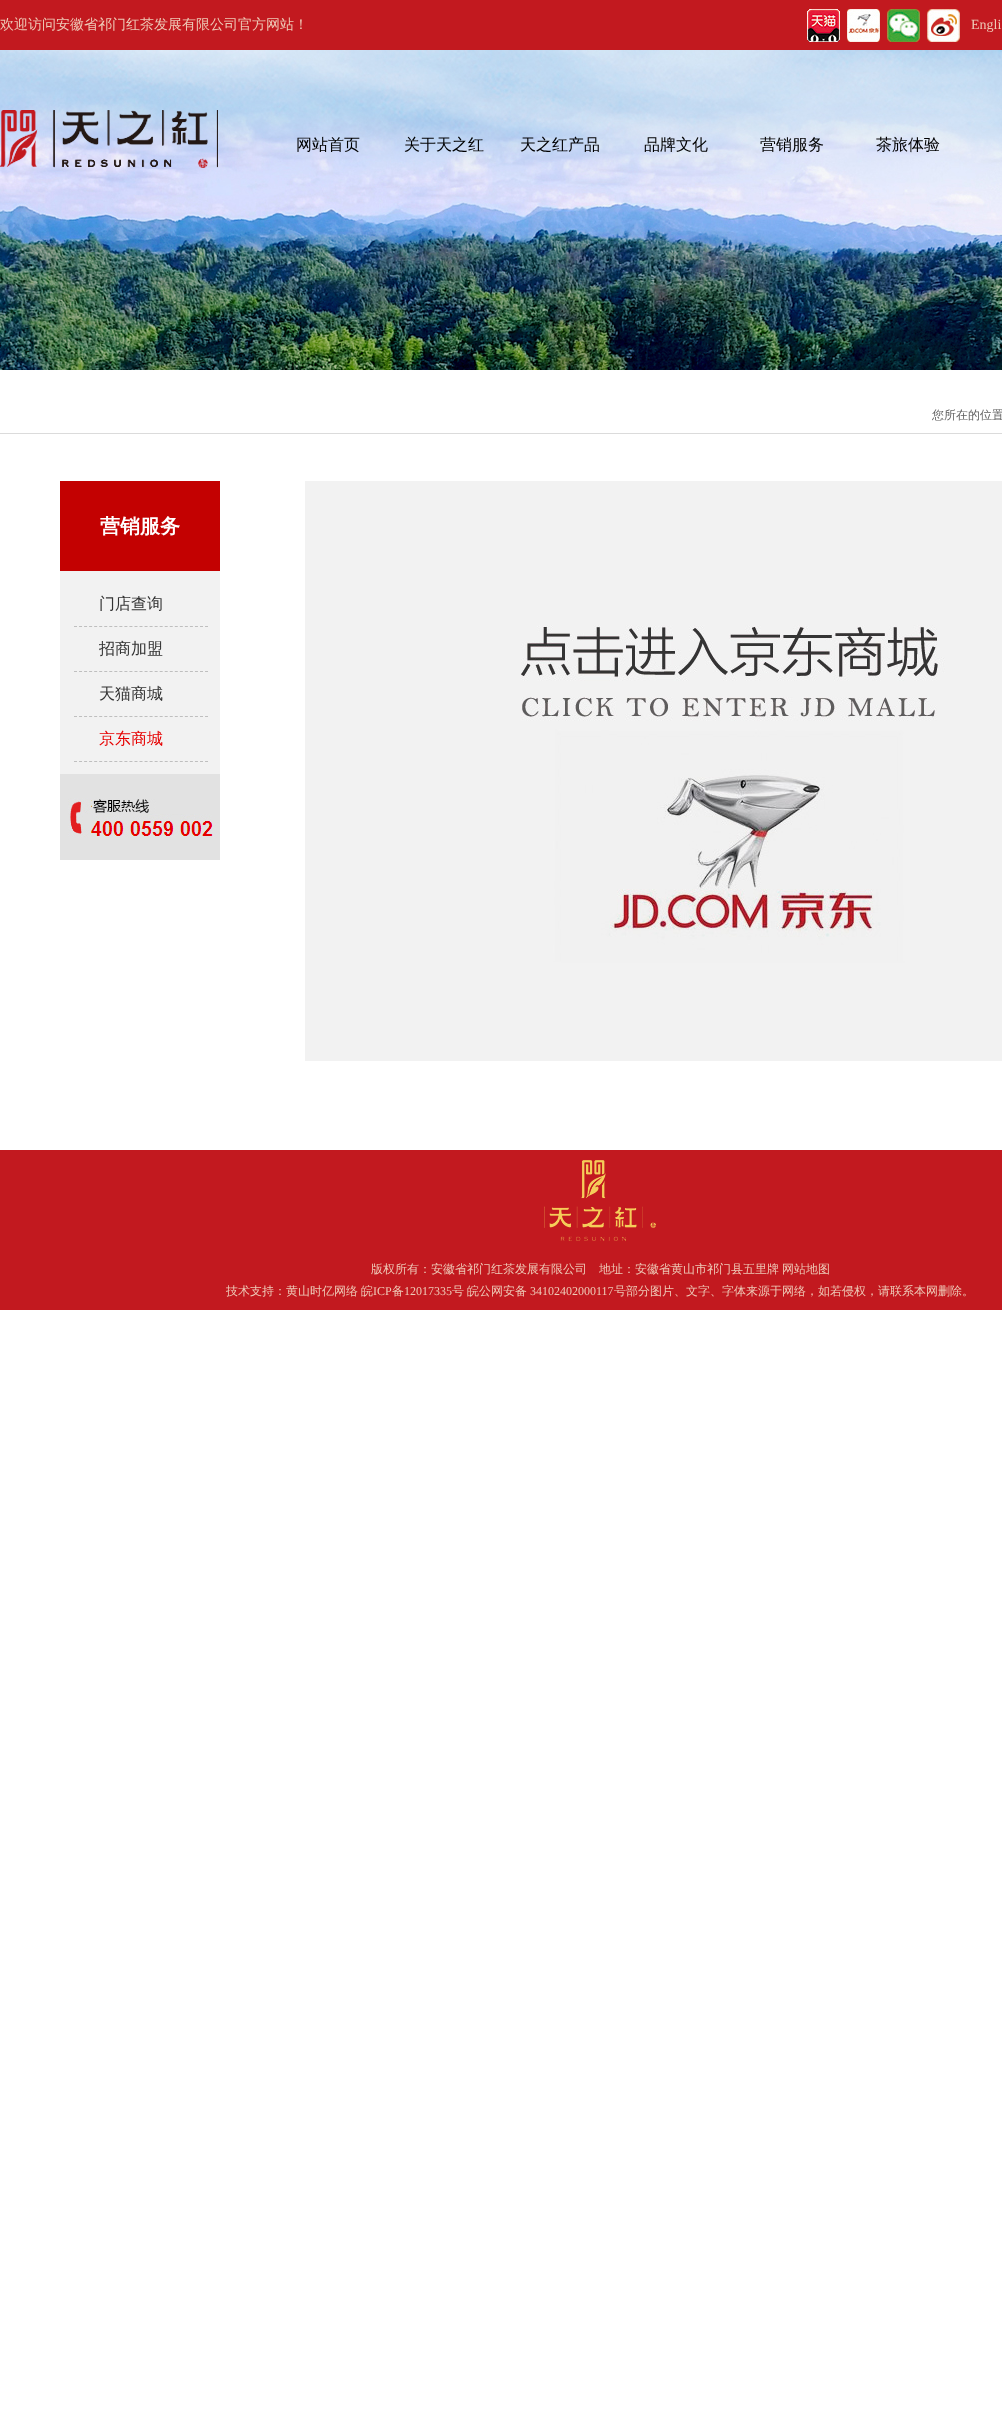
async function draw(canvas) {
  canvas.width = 1002
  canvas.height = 2427
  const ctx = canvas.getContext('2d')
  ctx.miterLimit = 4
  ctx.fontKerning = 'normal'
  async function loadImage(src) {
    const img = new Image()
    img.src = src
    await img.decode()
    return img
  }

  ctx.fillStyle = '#fff'
  ctx.fillRect(0, 0, 1002, 2427)
  ctx.fillStyle = '#c2191f'
  ctx.fillRect(0, 0, 1002, 50)
  ctx.font = '500 14px WenQuanYi Zen Hei'
  ctx.fillStyle = '#eecab7'
  ctx.fillText('欢迎访问安徽省祁门红茶发展有限公司官方网站！', 0, 29)
  ctx.drawImage(await loadImage('image0.png'), 807, 9, 33, 33)
  ctx.drawImage(await loadImage('image1.png'), 847, 9, 33, 33)
  ctx.drawImage(await loadImage('image2.png'), 887, 9, 33, 33)
  ctx.drawImage(await loadImage('image3.png'), 927, 9, 33, 33)
  ctx.font = '14px Liberation Serif'
  ctx.fillText('Engli', 971, 29)
  ctx.drawImage(await loadImage('image4.png'), 0, 50, 1002, 320)
  ctx.drawImage(await loadImage('image5.png'), 0, 110, 218, 58)
  ctx.font = '500 16px WenQuanYi Zen Hei'
  ctx.fillStyle = '#000'
  ctx.fillText('网站首页', 296, 150)
  ctx.fillText('关于天之红', 404, 150)
  ctx.fillText('天之红产品', 520, 150)
  ctx.fillText('品牌文化', 644, 150)
  ctx.fillText('营销服务', 760, 150)
  ctx.fillText('茶旅体验', 876, 150)
  ctx.fillStyle = '#dbdbdb'
  ctx.fillRect(0, 433, 1002, 1)
  ctx.font = '500 12px WenQuanYi Zen Hei'
  ctx.fillStyle = '#606060'
  ctx.fillText('您所在的位置', 932, 419)
  ctx.fillStyle = '#c30101'
  ctx.fillRect(60, 481, 160, 90)
  ctx.font = 'bold 20px WenQuanYi Zen Hei'
  ctx.fillStyle = '#fff'
  ctx.fillText('营销服务', 100, 533)
  ctx.fillStyle = '#f2f2f2'
  ctx.fillRect(60, 571, 160, 203)
  ctx.beginPath()
  ctx.moveTo(74, 626.5)
  ctx.lineTo(208, 626.5)
  ctx.strokeStyle = '#bfbfbf'
  ctx.setLineDash([3, 2.04])
  ctx.stroke()
  ctx.font = '500 16px WenQuanYi Zen Hei'
  ctx.fillStyle = '#333'
  ctx.fillText('门店查询', 99, 609)
  ctx.beginPath()
  ctx.moveTo(74, 671.5)
  ctx.lineTo(208, 671.5)
  ctx.stroke()
  ctx.fillText('招商加盟', 99, 654)
  ctx.beginPath()
  ctx.moveTo(74, 716.5)
  ctx.lineTo(208, 716.5)
  ctx.stroke()
  ctx.fillText('天猫商城', 99, 699)
  ctx.beginPath()
  ctx.moveTo(74, 761.5)
  ctx.lineTo(208, 761.5)
  ctx.stroke()
  ctx.fillStyle = '#e60000'
  ctx.fillText('京东商城', 99, 744)
  ctx.drawImage(await loadImage('image6.png'), 60, 774, 160, 86)
  ctx.drawImage(await loadImage('image7.png'), 305, 481, 697, 580)
  ctx.fillStyle = '#c2191f'
  ctx.fillRect(0, 1150, 1002, 160)
  ctx.drawImage(await loadImage('image8.png'), 544, 1160, 112, 81)
  ctx.font = '500 12px WenQuanYi Zen Hei'
  ctx.fillStyle = '#eecab7'
  ctx.fillText('版权所有：安徽省祁门红茶发展有限公司', 371, 1273)
  ctx.fillText('地址：安徽省黄山市祁门县五里牌', 599, 1273)
  ctx.fillText('网站地图', 782, 1273)
  ctx.fillText('技术支持：黄山时亿网络', 226, 1295)
  ctx.fillText('皖', 361, 1295)
  ctx.font = '12px Liberation Serif'
  ctx.fillText('ICP', 373, 1295)
  ctx.font = '500 12px WenQuanYi Zen Hei'
  ctx.fillText('备', 392, 1295)
  ctx.font = '12px Liberation Serif'
  ctx.fillText('12017335', 404, 1295)
  ctx.font = '500 12px WenQuanYi Zen Hei'
  ctx.fillText('号', 452, 1295)
  ctx.fillText('皖公网安备', 467, 1295)
  ctx.font = '12px Liberation Serif'
  ctx.fillText('34102402000117', 530, 1295)
  ctx.font = '500 12px WenQuanYi Zen Hei'
  ctx.fillText('号部分图片、文字、字体来源于网络，如若侵权，请联系本网删除。', 614, 1295)
}

draw(document.querySelector('canvas'))
